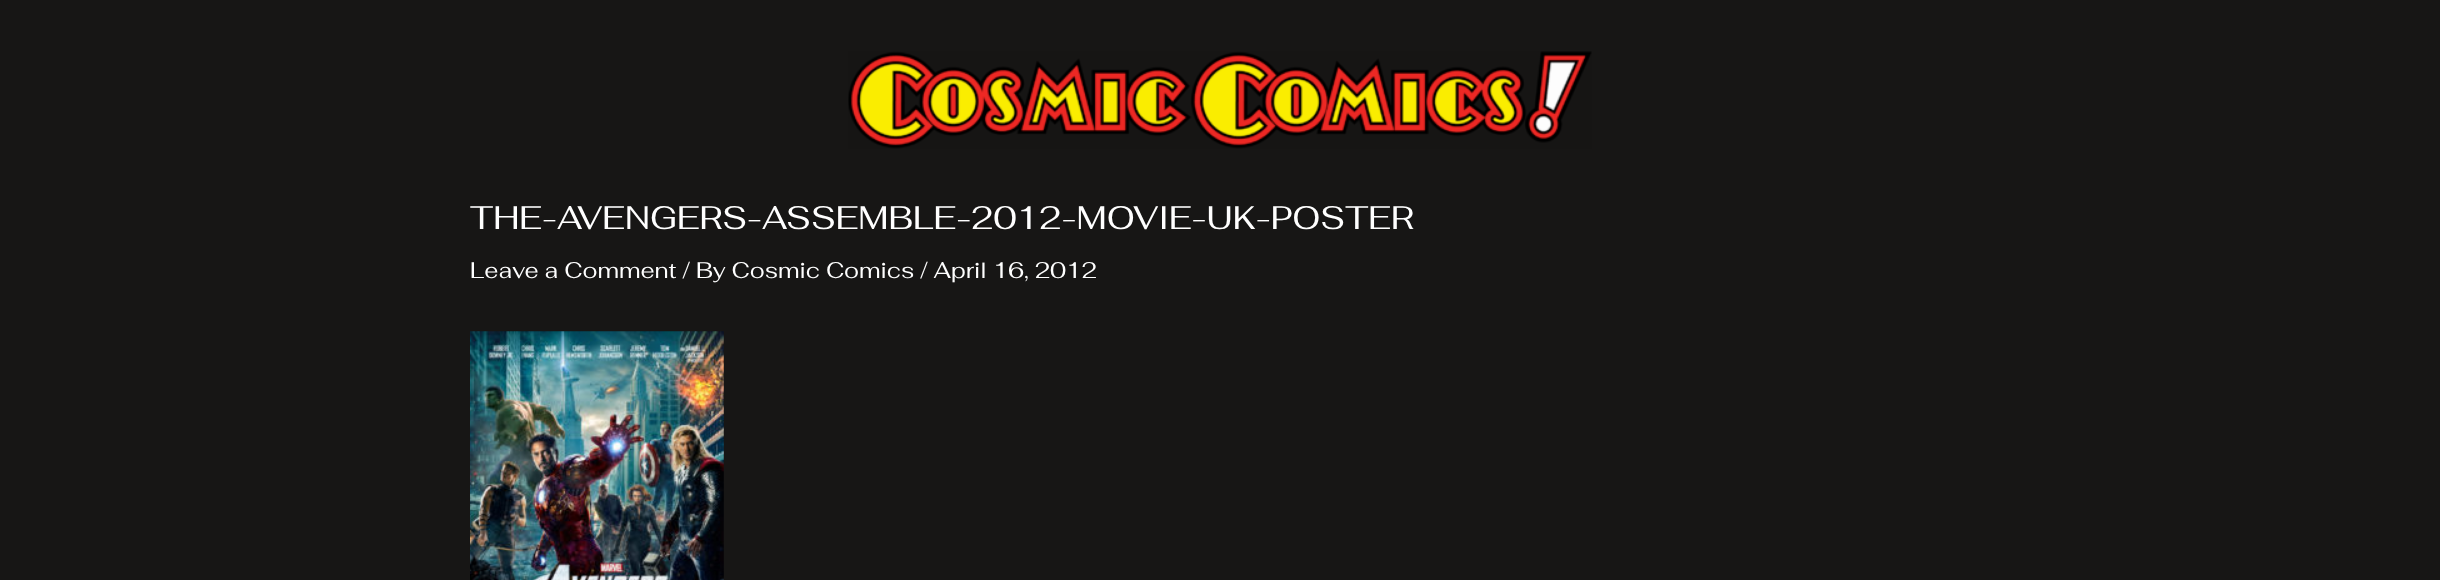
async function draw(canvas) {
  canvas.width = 2440
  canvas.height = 580
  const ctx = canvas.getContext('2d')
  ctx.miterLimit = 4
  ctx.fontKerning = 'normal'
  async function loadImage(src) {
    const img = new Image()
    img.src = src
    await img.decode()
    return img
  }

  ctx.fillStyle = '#171615'
  ctx.fillRect(0, 0, 2440, 580)
  ctx.drawImage(await loadImage('image0.png'), 848, 51, 744, 98)
  ctx.font = '32.5px Fahkwang'
  ctx.fillStyle = '#fff'
  ctx.fillText('THE-AVENGERS-ASSEMBLE-2012-MOVIE-UK-POSTER', 470, 229)
  ctx.font = '22.5px Fahkwang'
  ctx.fillText('Leave a Comment / By Cosmic Comics / April 16, 2012', 470, 278)
  ctx.drawImage(await loadImage('image1.png'), 470, 331, 254, 249)
}

draw(document.querySelector('canvas'))
